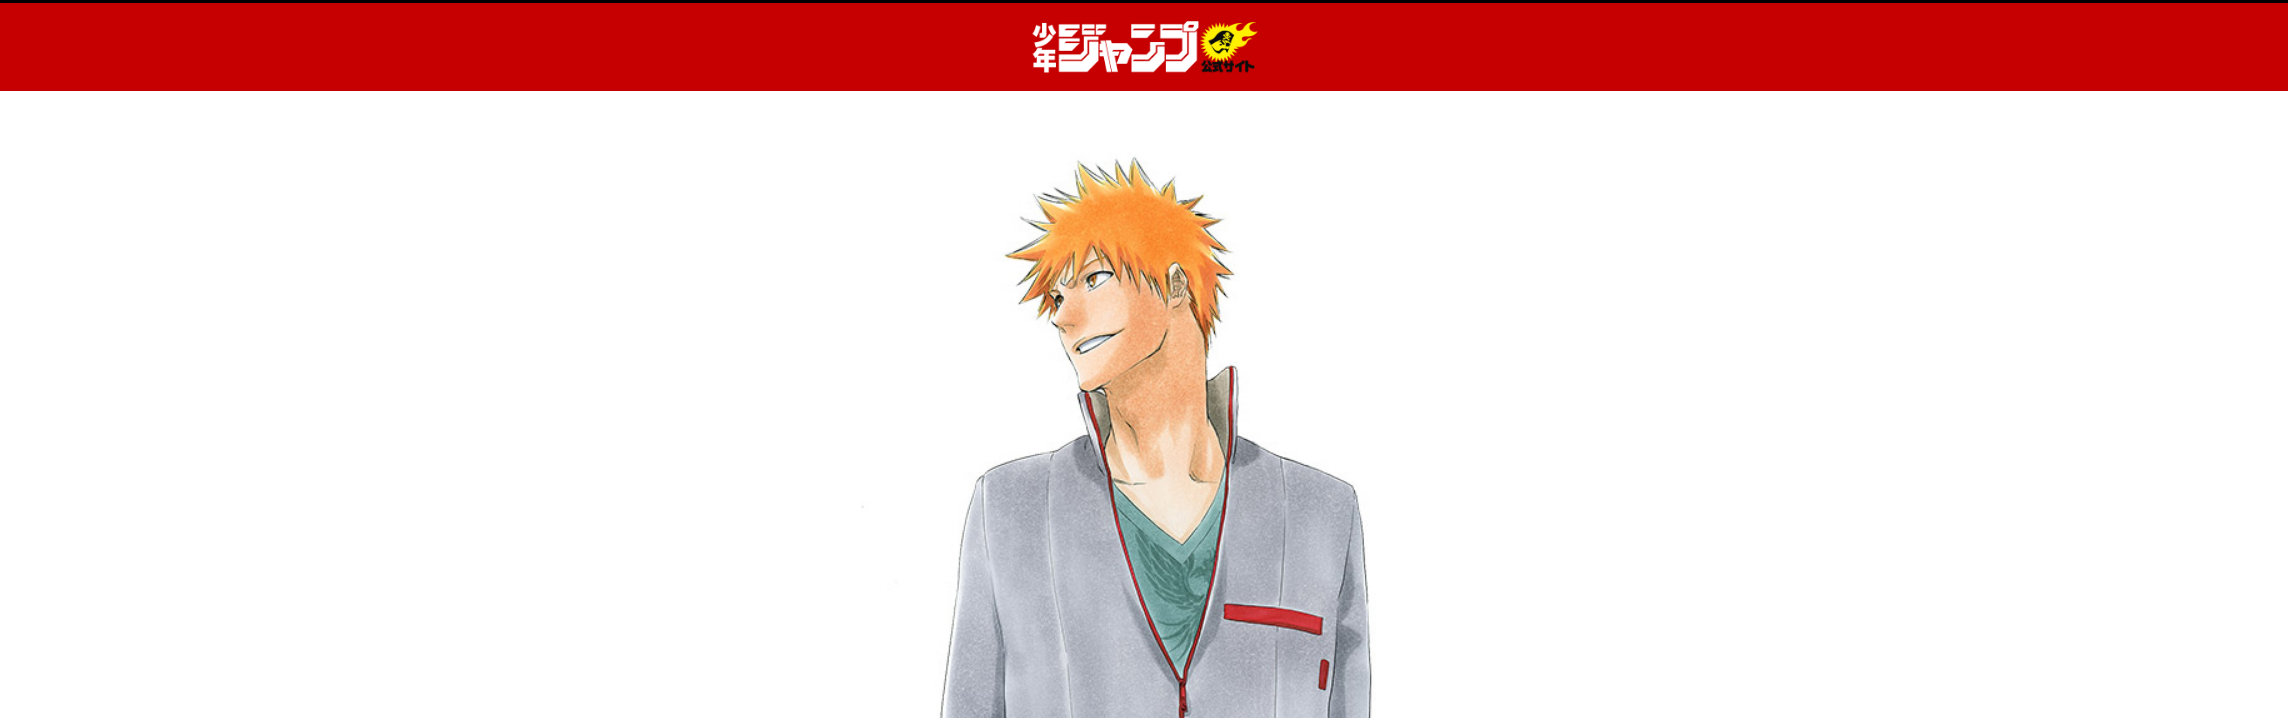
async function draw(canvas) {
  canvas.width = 2288
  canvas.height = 718
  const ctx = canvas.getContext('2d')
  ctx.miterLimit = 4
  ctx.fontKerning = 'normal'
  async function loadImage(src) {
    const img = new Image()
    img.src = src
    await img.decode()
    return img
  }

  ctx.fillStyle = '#c60000'
  ctx.fillRect(0, 0, 2288, 718)
  ctx.fillStyle = '#000'
  ctx.fillRect(0, 0, 2288, 3)
  ctx.drawImage(await loadImage('image0.png'), 1032, 21, 226, 52)
  ctx.fillStyle = '#fff'
  ctx.fillRect(0, 91, 2288, 627)
  ctx.drawImage(await loadImage('image1.png'), 861, 153, 515, 565)
}

draw(document.querySelector('canvas'))
